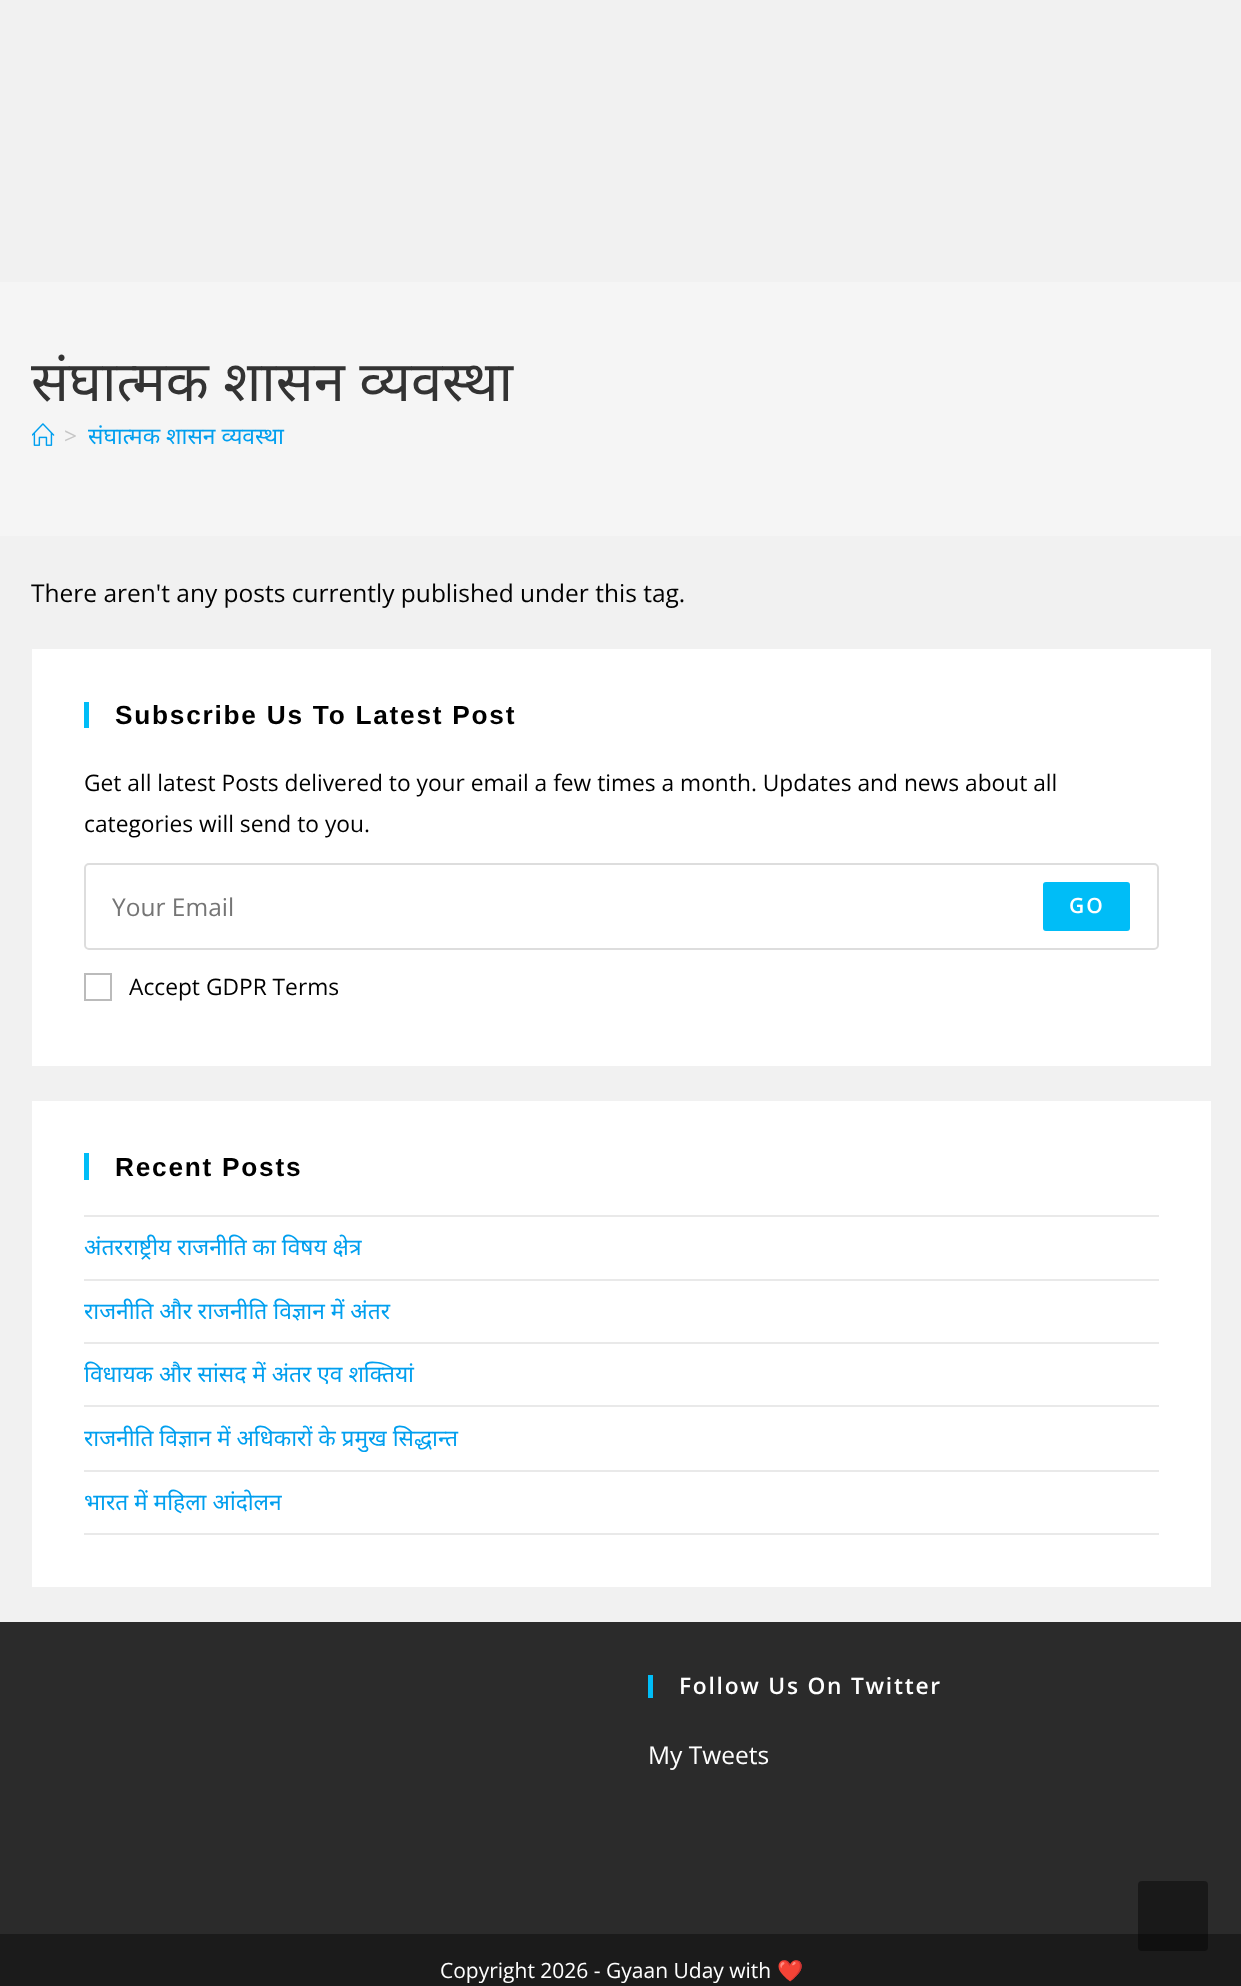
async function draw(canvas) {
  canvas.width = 1241
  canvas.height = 1986
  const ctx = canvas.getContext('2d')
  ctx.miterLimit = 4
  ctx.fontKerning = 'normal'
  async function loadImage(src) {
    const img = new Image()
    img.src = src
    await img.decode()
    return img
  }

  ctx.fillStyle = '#f1f1f1'
  ctx.fillRect(0, 0, 1241, 1986)
  ctx.fillStyle = '#f5f5f5'
  ctx.fillRect(0, 282, 1241, 254)
  ctx.font = '56px Noto Sans'
  ctx.fillStyle = '#333'
  ctx.fillText('संघात्मक शासन व्यवस्था', 31, 401)
  ctx.drawImage(await loadImage('image0.png'), 32, 423, 23, 23)
  ctx.font = '22.75px Open Sans'
  ctx.fillStyle = '#c6c6c6'
  ctx.fillText('>', 64, 444)
  ctx.font = '22.75px Noto Sans'
  ctx.fillStyle = '#009fef'
  ctx.fillText('संघात्मक शासन व्यवस्था', 88, 444)
  ctx.font = '24.5px Open Sans'
  ctx.fillStyle = '#000'
  ctx.fillText('There aren\'t any posts currently published under this tag.', 31, 602)
  ctx.fillStyle = '#fff'
  ctx.fillRect(32, 649, 1179, 417)
  ctx.fillStyle = '#00bdf7'
  ctx.fillRect(84, 702, 5, 26)
  ctx.letterSpacing = '1.75px'
  ctx.font = 'bold 26.25px Liberation Sans'
  ctx.fillStyle = '#000'
  ctx.fillText('Subscribe Us To Latest Post', 115, 724)
  ctx.letterSpacing = '0px'
  ctx.font = '22.75px Open Sans'
  ctx.fillText('Get all latest Posts delivered to your email a few times a month. Updates and news about all', 84, 791)
  ctx.fillText('categories will send to you.', 84, 832)
  ctx.beginPath()
  ctx.roundRect(85, 864, 1073, 85, 4)
  ctx.strokeStyle = '#ddd'
  ctx.lineWidth = 2
  ctx.stroke()
  ctx.font = '24.5px Open Sans'
  ctx.fillStyle = '#757575'
  ctx.fillText('Your Email', 112, 916)
  ctx.fillStyle = '#00bdf7'
  ctx.beginPath()
  ctx.roundRect(1042, 881, 89, 51, 4)
  ctx.fill()
  ctx.strokeStyle = '#fff'
  ctx.stroke()
  ctx.letterSpacing = '2px'
  ctx.font = '600 21px Open Sans'
  ctx.fillStyle = '#fff'
  ctx.fillText('GO', 1069, 913)
  ctx.strokeStyle = '#bbb'
  ctx.strokeRect(85, 974, 26, 26)
  ctx.letterSpacing = '0px'
  ctx.font = '22.75px Open Sans'
  ctx.fillStyle = '#000'
  ctx.fillText('Accept GDPR Terms', 129, 995)
  ctx.fillStyle = '#fff'
  ctx.fillRect(32, 1101, 1179, 486)
  ctx.fillStyle = '#00bdf7'
  ctx.fillRect(84, 1153, 5, 27)
  ctx.letterSpacing = '1.75px'
  ctx.font = 'bold 26.25px Liberation Sans'
  ctx.fillStyle = '#000'
  ctx.fillText('Recent Posts', 115, 1176)
  ctx.fillStyle = '#e9e9e9'
  ctx.fillRect(84, 1215, 1075, 2)
  ctx.fillRect(84, 1279, 1075, 2)
  ctx.letterSpacing = '0px'
  ctx.font = '22.75px Noto Sans'
  ctx.fillStyle = '#009fef'
  ctx.fillText('अंतरराष्ट्रीय राजनीति का विषय क्षेत्र', 84, 1255)
  ctx.fillStyle = '#e9e9e9'
  ctx.fillRect(84, 1342, 1075, 2)
  ctx.fillStyle = '#009fef'
  ctx.fillText('राजनीति और राजनीति विज्ञान में अंतर', 84, 1319)
  ctx.fillStyle = '#e9e9e9'
  ctx.fillRect(84, 1405, 1075, 2)
  ctx.fillStyle = '#009fef'
  ctx.fillText('विधायक और सांसद में अंतर एव शक्तियां', 84, 1382)
  ctx.fillStyle = '#e9e9e9'
  ctx.fillRect(84, 1470, 1075, 2)
  ctx.fillStyle = '#009fef'
  ctx.fillText('राजनीति विज्ञान में अधिकारों के प्रमुख सिद्धान्त', 84, 1446)
  ctx.fillStyle = '#e9e9e9'
  ctx.fillRect(84, 1533, 1075, 2)
  ctx.fillStyle = '#009fef'
  ctx.fillText('भारत में महिला आंदोलन', 84, 1510)
  ctx.fillStyle = '#2b2b2b'
  ctx.fillRect(0, 1622, 1241, 312)
  ctx.fillStyle = '#00bdf7'
  ctx.fillRect(648, 1675, 5, 23)
  ctx.letterSpacing = '1.75px'
  ctx.font = '600 22.75px Open Sans'
  ctx.fillStyle = '#fff'
  ctx.fillText('Follow Us On Twitter', 679, 1694)
  ctx.letterSpacing = '0px'
  ctx.font = '24.5px Open Sans'
  ctx.fillText('My Tweets', 648, 1764)
  ctx.fillStyle = '#1b1b1b'
  ctx.fillRect(0, 1934, 1241, 52)
  ctx.font = '21px Open Sans'
  ctx.fillStyle = '#fff'
  ctx.fillText('Copyright 2026 - Gyaan Uday with', 440, 1978)
  ctx.font = '21px Noto Color Emoji'
  ctx.fillText('❤️', 777, 1978)
  ctx.fillStyle = '#00000066'
  ctx.beginPath()
  ctx.roundRect(1138, 1881, 70, 70, 4)
  ctx.fill()
}

draw(document.querySelector('canvas'))
